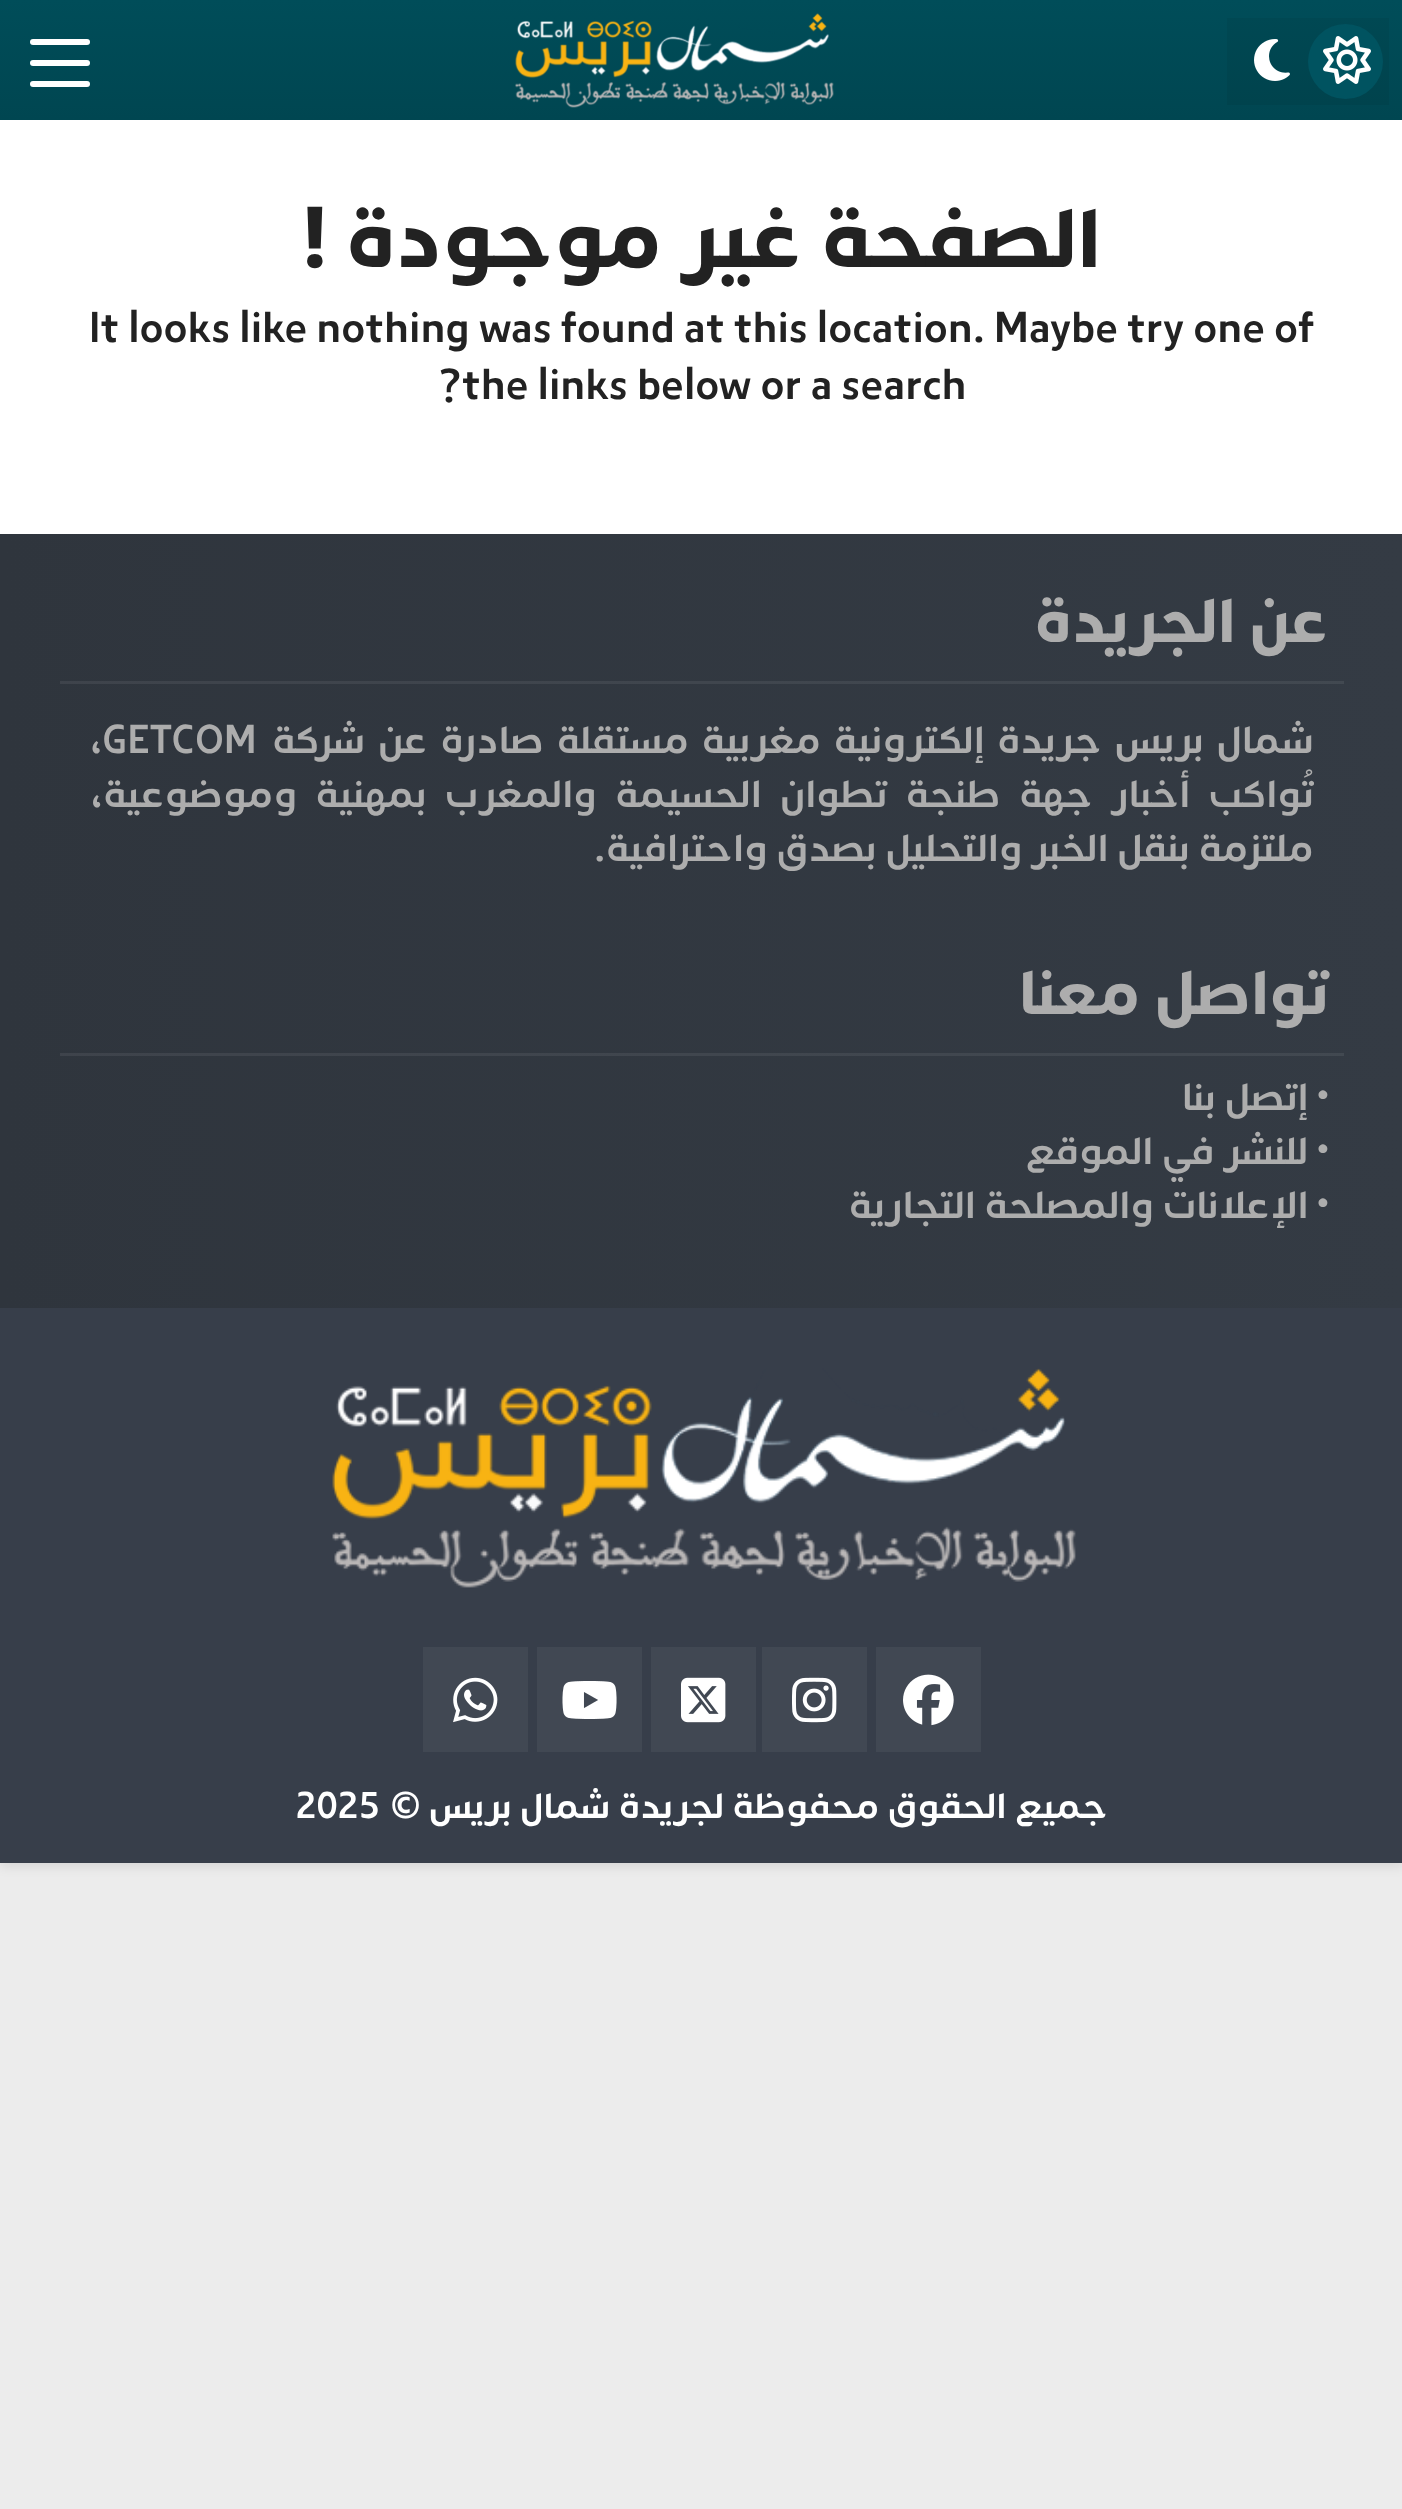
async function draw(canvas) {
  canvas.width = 1402
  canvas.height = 2509
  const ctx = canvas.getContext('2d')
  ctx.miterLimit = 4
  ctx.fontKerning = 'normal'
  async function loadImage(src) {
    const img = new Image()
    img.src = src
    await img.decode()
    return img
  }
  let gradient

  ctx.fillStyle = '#ececec'
  ctx.fillRect(0, 0, 1402, 2509)
  ctx.fillStyle = '#0000001a'
  ctx.filter = 'blur(6px)'
  ctx.beginPath()
  ctx.rect(0, 123, 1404, 1743)
  ctx.fill()
  ctx.filter = 'none'
  ctx.fillStyle = '#fff'
  ctx.fillRect(0, 120, 1402, 414)
  gradient = ctx.createLinearGradient(702, 0, 702, 120)
  gradient.addColorStop(0, '#004d59')
  gradient.addColorStop(1, '#004651')
  ctx.fillStyle = gradient
  ctx.fillRect(0, 0, 1402, 120)
  ctx.fillStyle = '#0000000d'
  ctx.fillRect(1227, 18, 162, 87)
  ctx.fillStyle = '#005360'
  ctx.beginPath()
  ctx.arc(1345.5, 61.5, 37.5, 0, 2 * Math.PI)
  ctx.fill()
  ctx.drawImage(await loadImage('image0.png'), 1323, 36, 48, 48)
  ctx.drawImage(await loadImage('image1.png'), 1254, 39, 36, 42)
  ctx.drawImage(await loadImage('image2.png'), 515, 13, 319, 95)
  ctx.fillStyle = '#fff'
  ctx.beginPath()
  ctx.roundRect(30, 60, 60, 6, 3)
  ctx.fill()
  ctx.beginPath()
  ctx.roundRect(30, 39, 60, 6, 3)
  ctx.fill()
  ctx.beginPath()
  ctx.roundRect(30, 81, 60, 6, 3)
  ctx.fill()
  ctx.direction = 'rtl'
  ctx.font = 'bold 90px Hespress'
  ctx.fillStyle = '#222'
  ctx.fillText('الصفحة غير موجودة !', 1101, 267)
  ctx.direction = 'ltr'
  ctx.font = '600 45px Hespress'
  ctx.fillText('It looks like nothing was found at this location. Maybe try one of', 89, 342)
  ctx.fillText('?the links below or a search', 438, 399)
  ctx.fillStyle = '#373e4a'
  ctx.fillRect(0, 1308, 1402, 555)
  gradient = ctx.createLinearGradient(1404, 921, 0, 921)
  gradient.addColorStop(0, '#343b44')
  gradient.addColorStop(1, '#2f353d')
  ctx.fillStyle = gradient
  ctx.fillRect(0, 534, 1402, 774)
  gradient = ctx.createLinearGradient(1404, 921, 0, 921)
  gradient.addColorStop(0, '#424951')
  gradient.addColorStop(1, '#3e434b')
  ctx.fillStyle = gradient
  ctx.fillRect(60, 1053, 1284, 3)
  ctx.fillRect(60, 681, 1284, 3)
  ctx.direction = 'rtl'
  ctx.font = 'bold 67.5px Hespress'
  ctx.fillStyle = '#adadad'
  ctx.fillText('عن الجريدة', 1329, 642)
  ctx.wordSpacing = '3.75px'
  ctx.font = '600 42px Hespress'
  ctx.fillText('شمال بريس جريدة إلكترونية مغربية مستقلة صادرة عن شركة', 1314, 753)
  ctx.wordSpacing = '0px'
  ctx.direction = 'ltr'
  ctx.fillText('،GETCOM', 90, 753)
  ctx.wordSpacing = '9.5px'
  ctx.direction = 'rtl'
  ctx.fillText('تُواكب أخبار جهة طنجة تطوان الحسيمة والمغرب بمهنية وموضوعية،', 1314, 807)
  ctx.wordSpacing = '0px'
  ctx.fillText('ملتزمة بنقل الخبر والتحليل بصدق واحترافية.', 1314, 861)
  ctx.font = 'bold 67.5px Hespress'
  ctx.fillText('تواصل معنا', 1329, 1014)
  ctx.font = '600 42px Hespress'
  ctx.fillText('• إتصل بنا', 1329, 1110)
  ctx.fillText('• للنشر في الموقع', 1329, 1164)
  ctx.fillText('• الإعلانات والمصلحة التجارية', 1329, 1218)
  ctx.drawImage(await loadImage('image3.png'), 332, 1368, 744, 220)
  ctx.fillStyle = '#414853'
  ctx.fillRect(876, 1647, 105, 105)
  ctx.drawImage(await loadImage('image4.png'), 903, 1674, 51, 52)
  ctx.fillRect(762, 1647, 105, 105)
  ctx.drawImage(await loadImage('image5.png'), 792, 1677, 45, 46)
  ctx.fillRect(651, 1647, 105, 105)
  ctx.drawImage(await loadImage('image6.png'), 681, 1677, 45, 46)
  ctx.fillRect(537, 1647, 105, 105)
  ctx.drawImage(await loadImage('image7.png'), 562, 1681, 55, 38)
  ctx.fillRect(423, 1647, 105, 105)
  ctx.drawImage(await loadImage('image8.png'), 453, 1677, 45, 46)
  ctx.font = '600 39px Hespress'
  ctx.fillStyle = '#fff'
  ctx.fillText('جميع الحقوق محفوظة لجريدة شمال بريس ©', 1108, 1818)
  ctx.direction = 'ltr'
  ctx.fillText('2025', 296, 1818)
}

draw(document.querySelector('canvas'))
